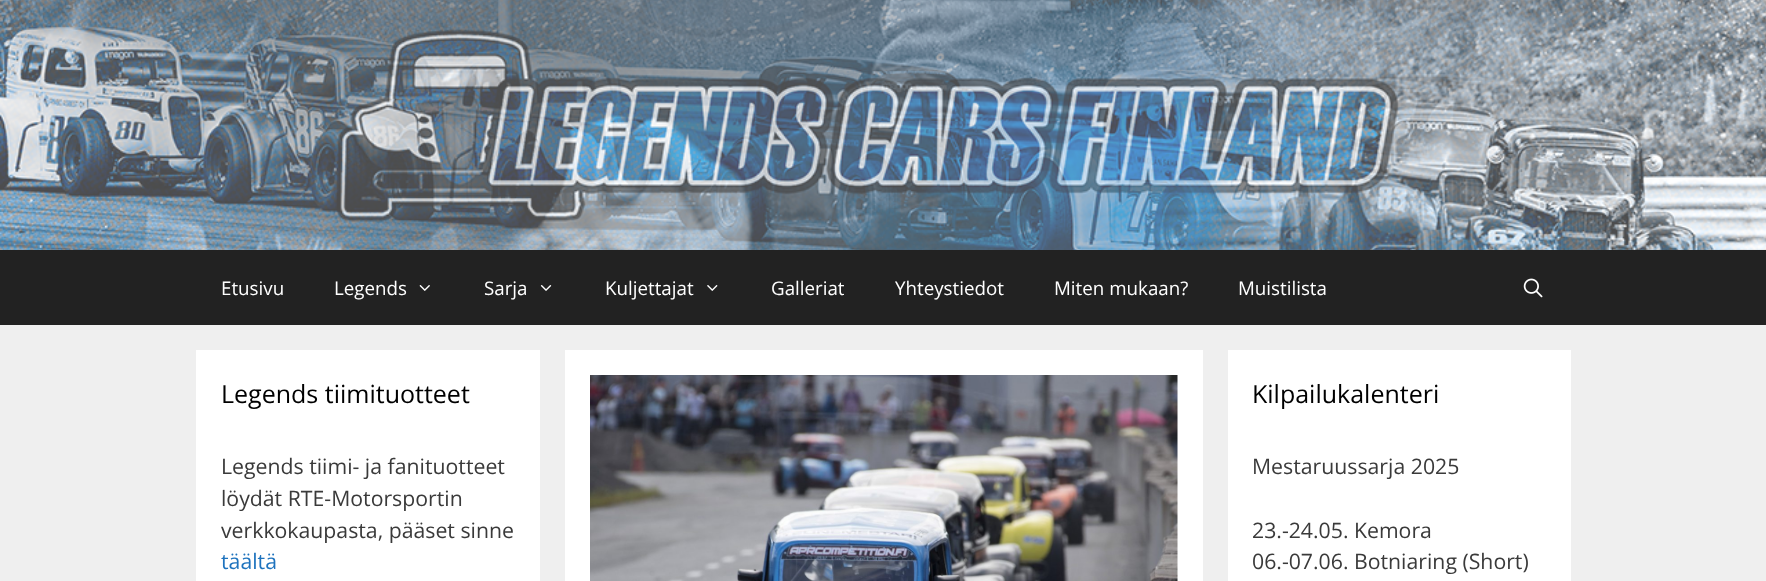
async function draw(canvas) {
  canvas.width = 1766
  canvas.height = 581
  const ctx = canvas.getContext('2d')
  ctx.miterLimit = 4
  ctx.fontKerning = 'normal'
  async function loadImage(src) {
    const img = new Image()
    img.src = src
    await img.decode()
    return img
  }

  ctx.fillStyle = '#efefef'
  ctx.fillRect(0, 0, 1766, 581)
  ctx.drawImage(await loadImage('image0.png'), 0, 0, 1766, 250)
  ctx.fillStyle = '#222'
  ctx.fillRect(0, 250, 1766, 75)
  ctx.font = '18.75px Open Sans'
  ctx.fillStyle = '#fff'
  ctx.fillText('Etusivu', 221, 295)
  ctx.fillText('Legends', 334, 295)
  ctx.drawImage(await loadImage('image1.png'), 419, 285, 11, 6)
  ctx.fillText('Sarja', 484, 295)
  ctx.drawImage(await loadImage('image2.png'), 540, 285, 12, 6)
  ctx.fillText('Kuljettajat', 605, 295)
  ctx.drawImage(await loadImage('image3.png'), 707, 285, 11, 6)
  ctx.fillText('Galleriat', 771, 295)
  ctx.fillText('Yhteystiedot', 895, 295)
  ctx.fillText('Miten mukaan?', 1054, 295)
  ctx.fillText('Muistilista', 1238, 295)
  ctx.drawImage(await loadImage('image4.png'), 1523, 278, 20, 20)
  ctx.fillRect(196, 350, 344, 231)
  ctx.font = '25px Open Sans'
  ctx.fillStyle = '#000'
  ctx.fillText('Legends tiimituotteet', 221, 403)
  ctx.font = '21.25px Open Sans'
  ctx.fillStyle = '#3a3a3a'
  ctx.fillText('Legends tiimi- ja fanituotteet', 221, 474)
  ctx.fillText('löydät RTE-Motorsportin', 221, 506)
  ctx.fillText('verkkokaupasta, pääset sinne', 221, 538)
  ctx.fillStyle = '#1e73be'
  ctx.fillText('täältä', 221, 569)
  ctx.fillStyle = '#fff'
  ctx.fillRect(565, 350, 638, 231)
  ctx.drawImage(await loadImage('image5.png'), 590, 375, 588, 206)
  ctx.fillRect(1228, 350, 343, 231)
  ctx.font = '25px Open Sans'
  ctx.fillStyle = '#000'
  ctx.fillText('Kilpailukalenteri', 1252, 403)
  ctx.font = '21.25px Open Sans'
  ctx.fillStyle = '#3a3a3a'
  ctx.fillText('Mestaruussarja 2025', 1252, 474)
  ctx.fillText('23.-24.05. Kemora', 1252, 538)
  ctx.fillText('06.-07.06. Botniaring (Short)', 1252, 569)
}

draw(document.querySelector('canvas'))
